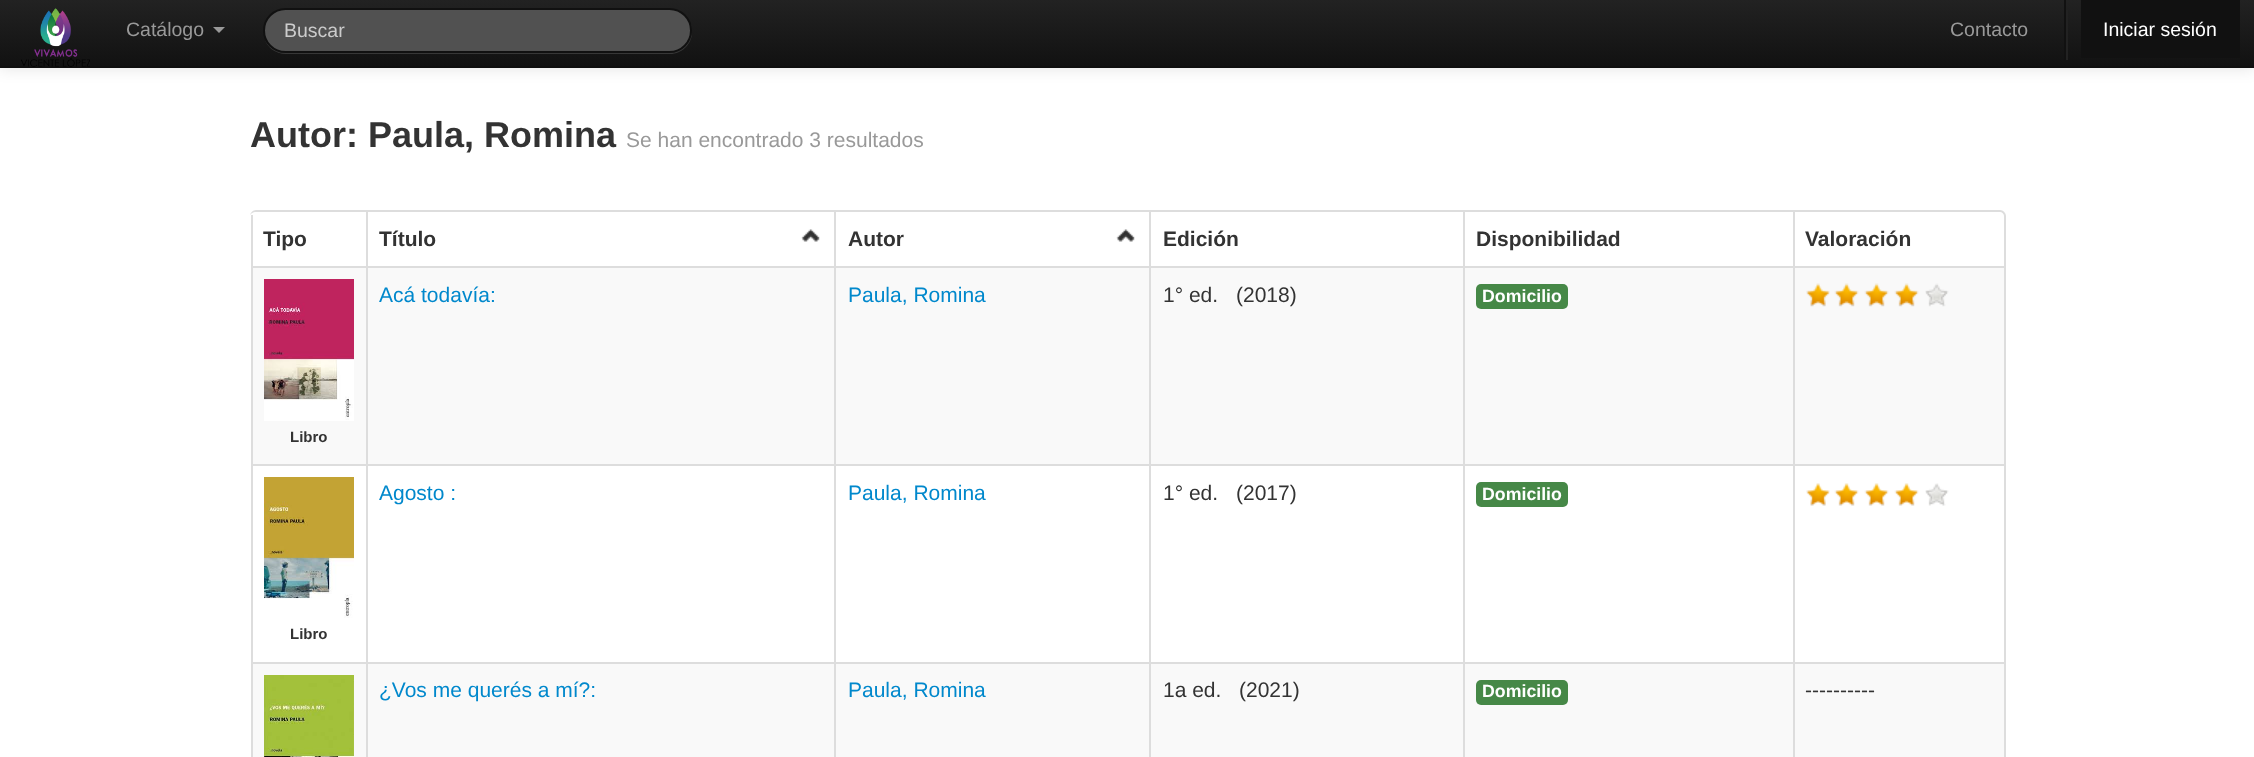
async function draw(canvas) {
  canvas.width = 2254
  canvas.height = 757
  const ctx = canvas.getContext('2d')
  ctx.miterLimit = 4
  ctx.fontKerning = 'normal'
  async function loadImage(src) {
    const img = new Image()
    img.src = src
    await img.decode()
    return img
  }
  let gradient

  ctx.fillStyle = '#fff'
  ctx.fillRect(0, 0, 2254, 757)
  ctx.fillStyle = '#0000001a'
  ctx.filter = 'blur(7.5px)'
  ctx.beginPath()
  ctx.rect(0, 2, 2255, 67)
  ctx.fill()
  ctx.filter = 'none'
  gradient = ctx.createLinearGradient(1127, 0, 1127, 68)
  gradient.addColorStop(0, '#222')
  gradient.addColorStop(1, '#111')
  ctx.fillStyle = gradient
  ctx.fillRect(0, 0, 2254, 66)
  ctx.fillStyle = '#0f0f0f'
  ctx.fillRect(0, 66, 2254, 2)
  ctx.drawImage(await loadImage('image0.png'), 21, 8, 69, 59)
  ctx.font = '19.5px Liberation Sans'
  ctx.fillStyle = '#999'
  ctx.fillText('Catálogo', 126, 36)
  ctx.beginPath()
  ctx.moveTo(213, 27)
  ctx.lineTo(225, 27)
  ctx.lineTo(219, 33)
  ctx.closePath()
  ctx.fill()
  ctx.fillStyle = '#ffffff26'
  ctx.beginPath()
  ctx.moveTo(264, 38)
  ctx.bezierCurveTo(267, 47, 275, 54, 286, 54)
  ctx.lineTo(670, 54)
  ctx.bezierCurveTo(682, 54, 692, 44, 692, 32)
  ctx.bezierCurveTo(692, 29, 692, 26, 691, 24)
  ctx.lineTo(692, 30)
  ctx.bezierCurveTo(692, 42, 681, 52, 669, 52)
  ctx.lineTo(285, 52)
  ctx.bezierCurveTo(275, 52, 267, 46, 264, 38)
  ctx.closePath()
  ctx.fill()
  ctx.fillStyle = '#515151'
  ctx.beginPath()
  ctx.roundRect(264, 9, 427, 43, 21.5)
  ctx.fill()
  ctx.strokeStyle = '#111'
  ctx.lineWidth = 2
  ctx.stroke()
  ctx.fillStyle = '#ccc'
  ctx.fillText('Buscar', 284, 37)
  ctx.fillStyle = '#999'
  ctx.fillText('Contacto', 1950, 36)
  ctx.fillStyle = '#222'
  ctx.fillRect(2066, 10, 2, 50)
  ctx.fillStyle = '#111'
  ctx.fillRect(2064, 0, 2, 60)
  ctx.fillRect(2081, 0, 159, 58)
  ctx.fillStyle = '#fff'
  ctx.fillText('Iniciar sesión', 2103, 36)
  ctx.font = 'bold 36px Liberation Sans'
  ctx.fillStyle = '#333'
  ctx.fillText('Autor: Paula, Romina', 250, 147)
  ctx.font = '21px Liberation Sans'
  ctx.fillStyle = '#999'
  ctx.fillText('Se han encontrado 3 resultados', 626, 147)
  ctx.fillStyle = '#ddd'
  ctx.beginPath()
  ctx.moveTo(256, 210)
  ctx.lineTo(2000, 210)
  ctx.bezierCurveTo(2003, 210, 2006, 213, 2006, 216)
  ctx.lineTo(2006, 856)
  ctx.bezierCurveTo(2006, 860, 2003, 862, 2000, 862)
  ctx.lineTo(256, 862)
  ctx.bezierCurveTo(253, 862, 250, 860, 250, 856)
  ctx.lineTo(250, 216)
  ctx.bezierCurveTo(250, 213, 253, 210, 256, 210)
  ctx.closePath()
  ctx.moveTo(256, 212)
  ctx.lineTo(2000, 212)
  ctx.bezierCurveTo(2002, 212, 2004, 214, 2004, 216)
  ctx.lineTo(2004, 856)
  ctx.bezierCurveTo(2004, 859, 2002, 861, 2000, 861)
  ctx.lineTo(256, 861)
  ctx.bezierCurveTo(253, 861, 250, 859, 250, 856)
  ctx.lineTo(250, 216)
  ctx.bezierCurveTo(250, 214, 253, 212, 256, 212)
  ctx.closePath()
  ctx.fill('evenodd')
  ctx.fillRect(251, 215, 2, 51)
  ctx.font = 'bold 21px Liberation Sans'
  ctx.fillStyle = '#333'
  ctx.fillText('Tipo', 263, 246)
  ctx.fillStyle = '#ddd'
  ctx.fillRect(366, 212, 2, 54)
  ctx.fillStyle = '#333'
  ctx.fillText('Título', 379, 246)
  ctx.drawImage(await loadImage('image1.png'), 801, 229, 19, 13)
  ctx.fillStyle = '#ddd'
  ctx.fillRect(834, 212, 2, 54)
  ctx.fillStyle = '#333'
  ctx.fillText('Autor', 848, 246)
  ctx.drawImage(await loadImage('image2.png'), 1116, 229, 19, 13)
  ctx.fillStyle = '#ddd'
  ctx.fillRect(1149, 212, 2, 54)
  ctx.fillStyle = '#333'
  ctx.fillText('Edición', 1163, 246)
  ctx.fillStyle = '#ddd'
  ctx.fillRect(1463, 212, 2, 54)
  ctx.fillStyle = '#333'
  ctx.fillText('Disponibilidad', 1476, 246)
  ctx.fillStyle = '#ddd'
  ctx.fillRect(1793, 212, 2, 54)
  ctx.fillStyle = '#333'
  ctx.fillText('Valoración', 1805, 246)
  ctx.fillStyle = '#f9f9f9'
  ctx.fillRect(368, 268, 466, 196)
  ctx.fillStyle = '#ddd'
  ctx.fillRect(251, 266, 1753, 2)
  ctx.fillRect(366, 266, 2, 198)
  ctx.font = '21px Liberation Sans'
  ctx.fillStyle = '#08c'
  ctx.fillText('Acá todavía:', 379, 302)
  ctx.fillStyle = '#f9f9f9'
  ctx.fillRect(836, 268, 313, 196)
  ctx.fillStyle = '#ddd'
  ctx.fillRect(834, 266, 2, 198)
  ctx.fillStyle = '#08c'
  ctx.fillText('Paula, Romina', 848, 302)
  ctx.fillStyle = '#f9f9f9'
  ctx.fillRect(1151, 268, 312, 196)
  ctx.fillStyle = '#ddd'
  ctx.fillRect(1149, 266, 2, 198)
  ctx.fillStyle = '#333'
  ctx.fillText('1° ed.', 1163, 302)
  ctx.fillText('(2018)', 1236, 302)
  ctx.fillStyle = '#f9f9f9'
  ctx.fillRect(1465, 268, 328, 196)
  ctx.fillStyle = '#ddd'
  ctx.fillRect(1463, 266, 2, 198)
  ctx.fillStyle = '#468847'
  ctx.beginPath()
  ctx.roundRect(1476, 284, 92, 25, 5)
  ctx.fill()
  ctx.font = 'bold 17.75px Liberation Sans'
  ctx.fillStyle = '#fff'
  ctx.fillText('Domicilio', 1482, 302)
  ctx.fillStyle = '#f9f9f9'
  ctx.fillRect(1795, 268, 209, 196)
  ctx.fillStyle = '#ddd'
  ctx.fillRect(1793, 266, 2, 198)
  ctx.drawImage(await loadImage('image3.png'), 1806, 283, 24, 24)
  ctx.drawImage(await loadImage('image4.png'), 1834, 283, 25, 24)
  ctx.drawImage(await loadImage('image4.png'), 1864, 283, 25, 24)
  ctx.drawImage(await loadImage('image5.png'), 1894, 283, 25, 24)
  ctx.drawImage(await loadImage('image6.png'), 1925, 283, 24, 24)
  ctx.fillStyle = '#f9f9f9'
  ctx.fillRect(253, 268, 113, 196)
  ctx.fillStyle = '#ddd'
  ctx.fillRect(251, 266, 2, 198)
  ctx.drawImage(await loadImage('image7.png'), 264, 279, 90, 142)
  ctx.font = 'bold 15px Liberation Sans'
  ctx.fillStyle = '#333'
  ctx.fillText('Libro', 290, 442)
  ctx.fillStyle = '#ddd'
  ctx.fillRect(251, 464, 1753, 2)
  ctx.fillRect(366, 464, 2, 198)
  ctx.font = '21px Liberation Sans'
  ctx.fillStyle = '#08c'
  ctx.fillText('Agosto :', 379, 500)
  ctx.fillStyle = '#ddd'
  ctx.fillRect(834, 464, 2, 198)
  ctx.fillStyle = '#08c'
  ctx.fillText('Paula, Romina', 848, 500)
  ctx.fillStyle = '#ddd'
  ctx.fillRect(1149, 464, 2, 198)
  ctx.fillStyle = '#333'
  ctx.fillText('1° ed.', 1163, 500)
  ctx.fillText('(2017)', 1236, 500)
  ctx.fillStyle = '#ddd'
  ctx.fillRect(1463, 464, 2, 198)
  ctx.fillStyle = '#468847'
  ctx.beginPath()
  ctx.roundRect(1476, 482, 92, 25, 5)
  ctx.fill()
  ctx.font = 'bold 17.75px Liberation Sans'
  ctx.fillStyle = '#fff'
  ctx.fillText('Domicilio', 1482, 500)
  ctx.fillStyle = '#ddd'
  ctx.fillRect(1793, 464, 2, 198)
  ctx.drawImage(await loadImage('image8.png'), 1806, 483, 24, 23)
  ctx.drawImage(await loadImage('image9.png'), 1834, 483, 25, 23)
  ctx.drawImage(await loadImage('image9.png'), 1864, 483, 25, 23)
  ctx.drawImage(await loadImage('image10.png'), 1894, 483, 25, 23)
  ctx.drawImage(await loadImage('image11.png'), 1925, 483, 24, 23)
  ctx.fillRect(251, 464, 2, 198)
  ctx.drawImage(await loadImage('image12.png'), 264, 477, 90, 141)
  ctx.font = 'bold 15px Liberation Sans'
  ctx.fillStyle = '#333'
  ctx.fillText('Libro', 290, 639)
  ctx.fillStyle = '#f9f9f9'
  ctx.fillRect(253, 664, 113, 93)
  ctx.fillStyle = '#ddd'
  ctx.fillRect(251, 662, 1753, 2)
  ctx.fillRect(251, 662, 2, 95)
  ctx.drawImage(await loadImage('image13.png'), 264, 675, 90, 82)
  ctx.fillStyle = '#f9f9f9'
  ctx.fillRect(368, 664, 466, 93)
  ctx.fillStyle = '#ddd'
  ctx.fillRect(366, 662, 2, 95)
  ctx.font = '21px Liberation Sans'
  ctx.fillStyle = '#08c'
  ctx.fillText('¿Vos me querés a mí?:', 379, 697)
  ctx.fillStyle = '#f9f9f9'
  ctx.fillRect(836, 664, 313, 93)
  ctx.fillStyle = '#ddd'
  ctx.fillRect(834, 662, 2, 95)
  ctx.fillStyle = '#08c'
  ctx.fillText('Paula, Romina', 848, 697)
  ctx.fillStyle = '#f9f9f9'
  ctx.fillRect(1151, 664, 312, 93)
  ctx.fillStyle = '#ddd'
  ctx.fillRect(1149, 662, 2, 95)
  ctx.fillStyle = '#333'
  ctx.fillText('1a ed.', 1163, 697)
  ctx.fillText('(2021)', 1239, 697)
  ctx.fillStyle = '#f9f9f9'
  ctx.fillRect(1465, 664, 328, 93)
  ctx.fillStyle = '#ddd'
  ctx.fillRect(1463, 662, 2, 95)
  ctx.fillStyle = '#468847'
  ctx.beginPath()
  ctx.roundRect(1476, 680, 92, 25, 5)
  ctx.fill()
  ctx.font = 'bold 17.75px Liberation Sans'
  ctx.fillStyle = '#fff'
  ctx.fillText('Domicilio', 1482, 697)
  ctx.fillStyle = '#f9f9f9'
  ctx.fillRect(1795, 664, 209, 93)
  ctx.fillStyle = '#ddd'
  ctx.fillRect(1793, 662, 2, 95)
  ctx.font = '21px Liberation Sans'
  ctx.fillStyle = '#333'
  ctx.fillText('----------', 1805, 697)
}

draw(document.querySelector('canvas'))
